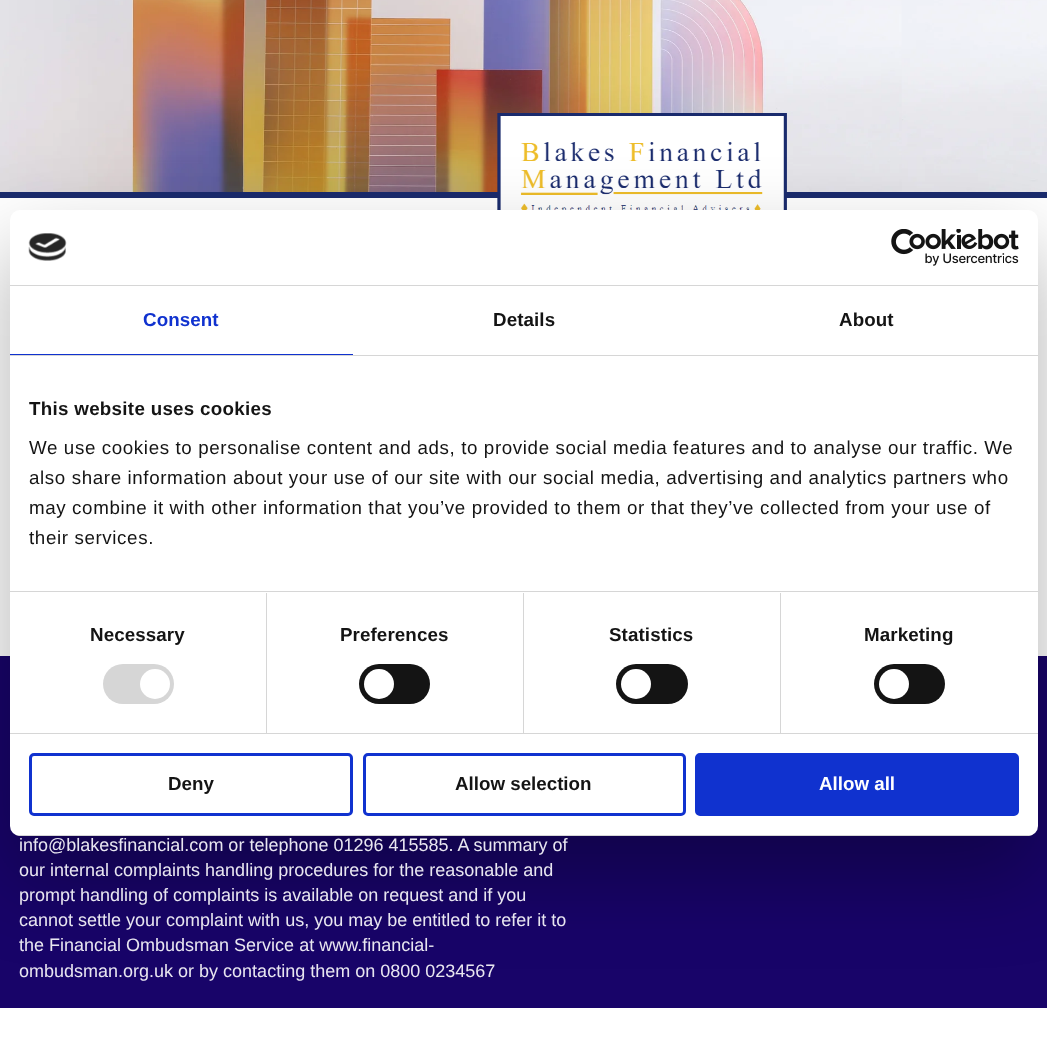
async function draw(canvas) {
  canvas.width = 1047
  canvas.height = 1045
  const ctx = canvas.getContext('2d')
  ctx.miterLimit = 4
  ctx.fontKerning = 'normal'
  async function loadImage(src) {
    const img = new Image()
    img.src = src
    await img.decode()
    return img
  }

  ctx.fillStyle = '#fff'
  ctx.fillRect(0, 0, 1047, 1045)
  ctx.drawImage(await loadImage('image2.png'), 0, 0, 1047, 278)
  ctx.fillStyle = '#180469'
  ctx.fillRect(0, 656, 1047, 352)
  ctx.fillStyle = '#0000004d'
  ctx.filter = 'blur(42.5px)'
  ctx.beginPath()
  ctx.roundRect(10, 250, 1028, 626, 10)
  ctx.fill()
  ctx.filter = 'none'
  ctx.fillStyle = '#fff'
  ctx.beginPath()
  ctx.roundRect(10, 210, 1028, 626, 10)
  ctx.fill()
  ctx.fillStyle = '#d6d6d6'
  ctx.fillRect(10, 285, 1028, 1)
  ctx.drawImage(await loadImage('image0.png'), 28, 233, 39, 28)
  ctx.drawImage(await loadImage('image1.png'), 891, 229, 128, 37)
  ctx.fillRect(10, 355, 1028, 1)
  ctx.fillStyle = '#1032cf'
  ctx.fillRect(10, 354, 343, 1)
  ctx.letterSpacing = '0.1px'
  ctx.font = 'bold 18.75px Liberation Sans'
  ctx.fillText('Consent', 143, 326)
  ctx.fillStyle = '#141414'
  ctx.fillText('Details', 493, 326)
  ctx.fillText('About', 839, 326)
  ctx.fillStyle = '#d6d6d6'
  ctx.fillRect(10, 591, 1028, 1)
  ctx.letterSpacing = '0.3px'
  ctx.fillStyle = '#141414'
  ctx.fillText('This website uses cookies', 29, 415)
  ctx.letterSpacing = '0.62px'
  ctx.font = '18.75px Liberation Sans'
  ctx.fillText('We use cookies to personalise content and ads, to provide social media features and to analyse our traffic. We', 29, 454)
  ctx.fillText('also share information about your use of our site with our social media, advertising and analytics partners who', 29, 484)
  ctx.fillText('may combine it with other information that you’ve provided to them or that they’ve collected from your use of', 29, 514)
  ctx.fillText('their services.', 29, 544)
  ctx.fillStyle = '#d6d6d6'
  ctx.fillRect(10, 733, 1028, 1)
  ctx.fillRect(266, 593, 1, 140)
  ctx.letterSpacing = '0.1px'
  ctx.font = 'bold 18.75px Liberation Sans'
  ctx.fillStyle = '#141414'
  ctx.fillText('Necessary', 90, 641)
  ctx.fillStyle = '#d6d6d6'
  ctx.beginPath()
  ctx.roundRect(103, 664, 71, 40, 20)
  ctx.fill()
  ctx.fillStyle = '#fff'
  ctx.beginPath()
  ctx.arc(155, 684, 15, 0, 2 * Math.PI)
  ctx.fill()
  ctx.fillStyle = '#d6d6d6'
  ctx.fillRect(523, 593, 1, 140)
  ctx.fillStyle = '#141414'
  ctx.fillText('Preferences', 340, 641)
  ctx.beginPath()
  ctx.roundRect(359, 664, 71, 40, 20)
  ctx.fill()
  ctx.fillStyle = '#fff'
  ctx.beginPath()
  ctx.arc(379, 684, 15, 0, 2 * Math.PI)
  ctx.fill()
  ctx.fillStyle = '#d6d6d6'
  ctx.fillRect(780, 593, 1, 140)
  ctx.fillStyle = '#141414'
  ctx.fillText('Statistics', 609, 641)
  ctx.beginPath()
  ctx.roundRect(616, 664, 72, 40, 20)
  ctx.fill()
  ctx.fillStyle = '#fff'
  ctx.beginPath()
  ctx.arc(636, 684, 15, 0, 2 * Math.PI)
  ctx.fill()
  ctx.fillStyle = '#141414'
  ctx.fillText('Marketing', 864, 641)
  ctx.beginPath()
  ctx.roundRect(874, 664, 71, 40, 20)
  ctx.fill()
  ctx.fillStyle = '#fff'
  ctx.beginPath()
  ctx.arc(894, 684, 15, 0, 2 * Math.PI)
  ctx.fill()
  ctx.save()
  ctx.beginPath()
  ctx.roundRect(10, 210, 1028, 626, 10)
  ctx.clip()
  ctx.fillStyle = '#d6d6d6'
  ctx.fillRect(10, 835, 1028, 1)
  ctx.restore()
  ctx.beginPath()
  ctx.roundRect(30.5, 754.5, 321, 60, 3.5)
  ctx.strokeStyle = '#1032cf'
  ctx.lineWidth = 3
  ctx.stroke()
  ctx.letterSpacing = '0px'
  ctx.fillStyle = '#141414'
  ctx.fillText('Deny', 168, 790)
  ctx.beginPath()
  ctx.roundRect(364.5, 754.5, 320, 60, 3.5)
  ctx.stroke()
  ctx.fillText('Allow selection', 455, 790)
  ctx.fillStyle = '#1032cf'
  ctx.beginPath()
  ctx.roundRect(696.5, 754.5, 321, 60, 3.5)
  ctx.fill()
  ctx.stroke()
  ctx.fillStyle = '#fff'
  ctx.fillText('Allow all', 819, 790)
  ctx.font = '18px Liberation Sans'
  ctx.fillStyle = '#e8e6f0'
  ctx.fillText('info@blakesfinancial.com or telephone 01296 415585. A summary of', 19, 851)
  ctx.fillText('our internal complaints handling procedures for the reasonable and', 19, 876)
  ctx.fillText('prompt handling of complaints is available on request and if you', 19, 901)
  ctx.fillText('cannot settle your complaint with us, you may be entitled to refer it to', 19, 926)
  ctx.fillText('the Financial Ombudsman Service at www.financial-', 19, 951)
  ctx.fillText('ombudsman.org.uk or by contacting them on 0800 0234567', 19, 977)
}

draw(document.querySelector('canvas'))
